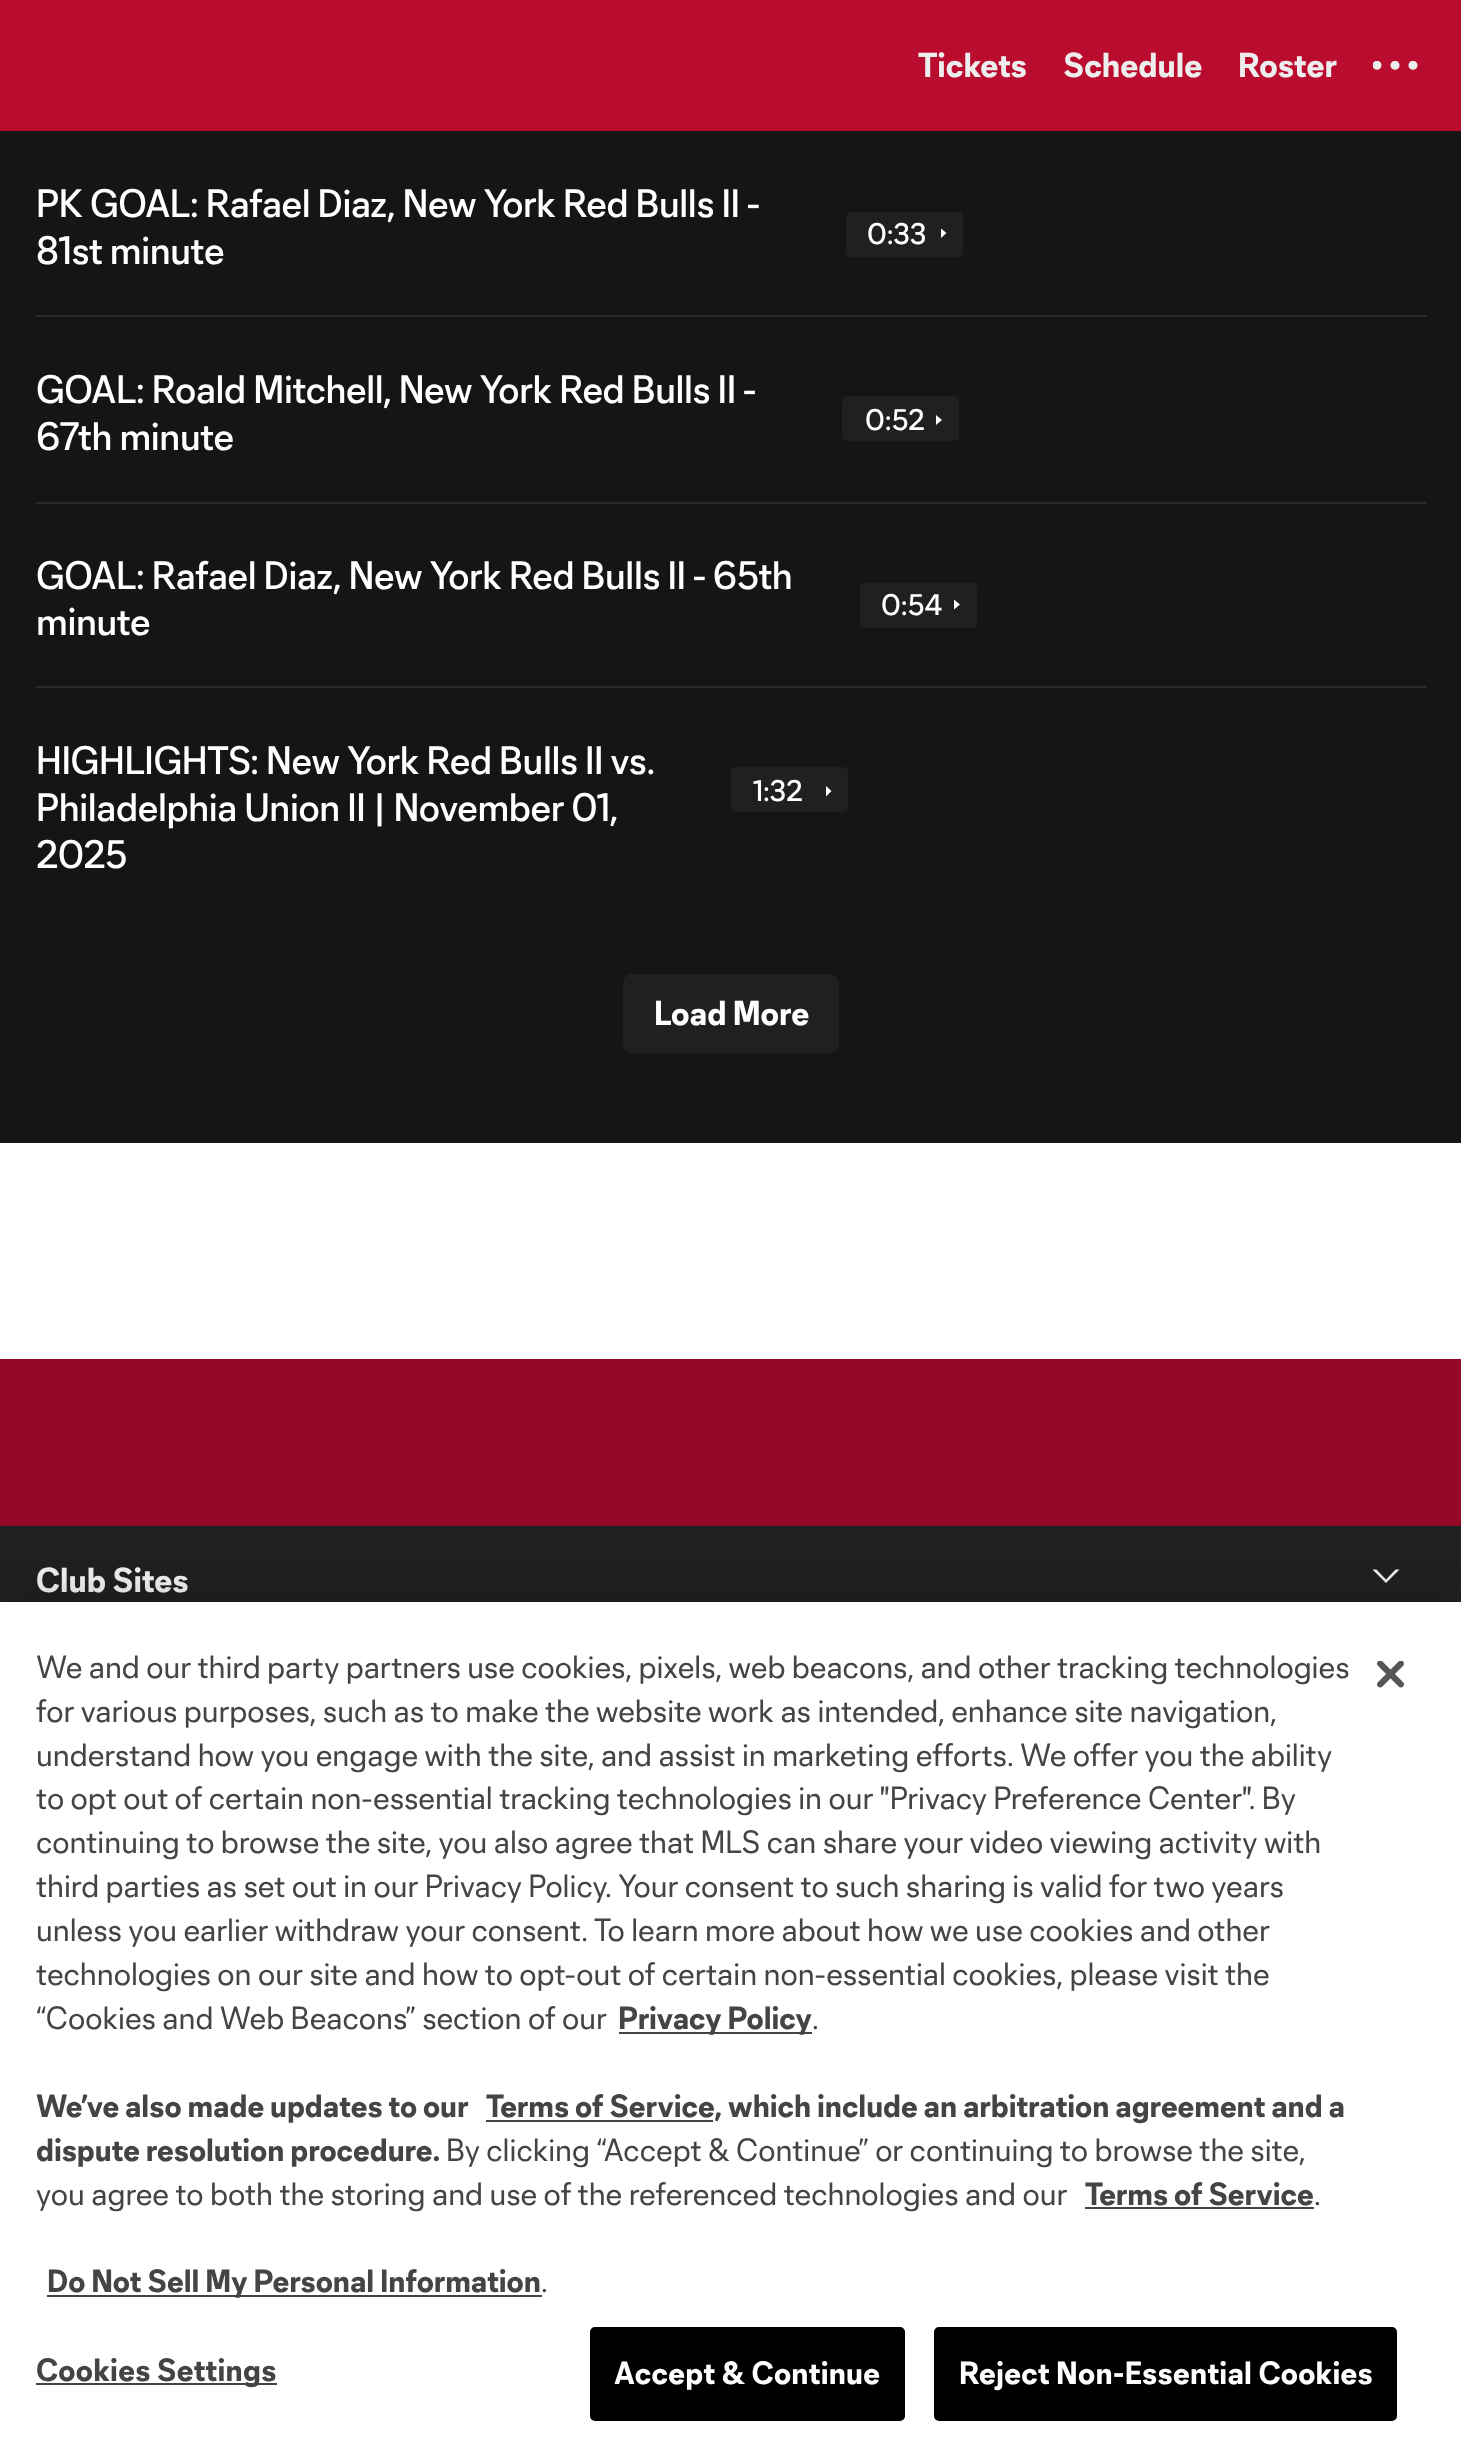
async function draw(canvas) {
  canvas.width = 1461
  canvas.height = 2464
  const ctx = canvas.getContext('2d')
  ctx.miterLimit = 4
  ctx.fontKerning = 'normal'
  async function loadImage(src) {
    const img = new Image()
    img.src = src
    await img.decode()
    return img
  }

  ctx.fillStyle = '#fff'
  ctx.fillRect(0, 0, 1461, 2464)
  ctx.fillStyle = '#ba0c2f'
  ctx.fillRect(0, 0, 1461, 131)
  ctx.font = 'bold 31.5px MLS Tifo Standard'
  ctx.fillStyle = '#ededed'
  ctx.fillText('Tickets', 918, 77)
  ctx.fillText('Schedule', 1063, 77)
  ctx.fillText('Roster', 1238, 77)
  ctx.drawImage(await loadImage('image0.png'), 1373, 61, 45, 9)
  ctx.fillStyle = '#151516'
  ctx.fillRect(0, 131, 1461, 1012)
  ctx.letterSpacing = '-0.35px'
  ctx.font = '500 36px MLS Tifo Standard'
  ctx.fillStyle = '#fff'
  ctx.fillText('PK GOAL: Rafael Diaz, New York Red Bulls II -', 36, 217)
  ctx.fillText('81st minute', 36, 264)
  ctx.fillStyle = '#1f2021'
  ctx.beginPath()
  ctx.roundRect(846, 212, 117, 45, 5)
  ctx.fill()
  ctx.letterSpacing = '0px'
  ctx.font = '500 27px MLS Tifo Standard'
  ctx.fillStyle = '#fff'
  ctx.fillText('0:33', 867, 244)
  ctx.save()
  ctx.beginPath()
  ctx.rect(941, 227, 7, 14)
  ctx.clip()
  ctx.beginPath()
  ctx.moveTo(940.5, 228)
  ctx.lineTo(940.5, 238.5)
  ctx.lineTo(946.5, 233)
  ctx.closePath()
  ctx.fill('evenodd')
  ctx.restore()
  ctx.fillStyle = '#2c2c2d'
  ctx.fillRect(36, 315, 1391, 2)
  ctx.letterSpacing = '-0.35px'
  ctx.font = '500 36px MLS Tifo Standard'
  ctx.fillStyle = '#fff'
  ctx.fillText('GOAL: Roald Mitchell, New York Red Bulls II -', 36, 403)
  ctx.fillText('67th minute', 36, 450)
  ctx.fillStyle = '#1f2021'
  ctx.beginPath()
  ctx.roundRect(842, 396, 117, 45, 5)
  ctx.fill()
  ctx.letterSpacing = '0px'
  ctx.font = '500 27px MLS Tifo Standard'
  ctx.fillStyle = '#fff'
  ctx.fillText('0:52', 865, 430)
  ctx.beginPath()
  ctx.moveTo(936, 415)
  ctx.lineTo(936, 425)
  ctx.lineTo(942, 420)
  ctx.closePath()
  ctx.fill('evenodd')
  ctx.fillStyle = '#2c2c2d'
  ctx.fillRect(36, 502, 1391, 2)
  ctx.letterSpacing = '-0.35px'
  ctx.font = '500 36px MLS Tifo Standard'
  ctx.fillStyle = '#fff'
  ctx.fillText('GOAL: Rafael Diaz, New York Red Bulls II - 65th', 36, 589)
  ctx.fillText('minute', 36, 635)
  ctx.fillStyle = '#1f2021'
  ctx.beginPath()
  ctx.roundRect(860, 583, 117, 45, 5)
  ctx.fill()
  ctx.letterSpacing = '0px'
  ctx.font = '500 27px MLS Tifo Standard'
  ctx.fillStyle = '#fff'
  ctx.fillText('0:54', 881, 615)
  ctx.beginPath()
  ctx.moveTo(954, 599.5)
  ctx.lineTo(954, 609.5)
  ctx.lineTo(960, 604.5)
  ctx.closePath()
  ctx.fill('evenodd')
  ctx.fillStyle = '#2c2c2d'
  ctx.fillRect(36, 686, 1391, 2)
  ctx.letterSpacing = '-0.35px'
  ctx.font = '500 36px MLS Tifo Standard'
  ctx.fillStyle = '#fff'
  ctx.fillText('HIGHLIGHTS: New York Red Bulls II vs.', 36, 774)
  ctx.fillText('Philadelphia Union II | November 01,', 36, 821)
  ctx.fillText('2025', 36, 868)
  ctx.fillStyle = '#1f2021'
  ctx.beginPath()
  ctx.roundRect(731, 767, 117, 45, 5)
  ctx.fill()
  ctx.letterSpacing = '0px'
  ctx.font = '500 27px MLS Tifo Standard'
  ctx.fillStyle = '#fff'
  ctx.fillText('1:32', 753, 801)
  ctx.beginPath()
  ctx.moveTo(826, 786)
  ctx.lineTo(826, 796.5)
  ctx.lineTo(831.5, 791)
  ctx.closePath()
  ctx.fill('evenodd')
  ctx.fillStyle = '#1f2021'
  ctx.beginPath()
  ctx.roundRect(623, 974, 216, 79, 9)
  ctx.fill()
  ctx.font = 'bold 31.5px MLS Tifo Standard'
  ctx.fillStyle = '#fff'
  ctx.fillText('Load More', 654, 1025)
  ctx.fillStyle = '#940925'
  ctx.fillRect(0, 1359, 1461, 167)
  ctx.fillStyle = '#1f2021'
  ctx.fillRect(0, 1526, 1461, 76)
  ctx.fillStyle = '#ededed'
  ctx.fillText('Club Sites', 36, 1592)
  ctx.beginPath()
  ctx.moveTo(1386, 1579.5)
  ctx.lineTo(1395.5, 1569.5)
  ctx.lineTo(1399.5, 1569.5)
  ctx.lineTo(1386, 1583)
  ctx.lineTo(1372.5, 1569.5)
  ctx.lineTo(1376.5, 1569.5)
  ctx.closePath()
  ctx.fill()
  ctx.fillStyle = '#00000033'
  ctx.filter = 'blur(20px)'
  ctx.beginPath()
  ctx.rect(0, 1602, 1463, 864)
  ctx.fill()
  ctx.filter = 'none'
  ctx.fillStyle = '#fff'
  ctx.fillRect(0, 1602, 1461, 862)
  ctx.font = '29.25px MLS Tifo Standard'
  ctx.fillStyle = '#444'
  ctx.fillText('We and our third party partners use cookies, pixels, web beacons, and other tracking technologies', 36, 1678)
  ctx.fillText('for various purposes, such as to make the website work as intended, enhance site navigation,', 36, 1722)
  ctx.fillText('understand how you engage with the site, and assist in marketing efforts.', 36, 1766)
  ctx.fillText('We offer you the ability', 1020, 1766)
  ctx.fillText('to opt out of certain non-essential tracking technologies in our "Privacy Preference Center". By', 36, 1809)
  ctx.fillText('continuing to browse the site, you also agree that MLS can share your video viewing activity with', 36, 1853)
  ctx.fillText('third parties as set out in our Privacy Policy. Your consent to such sharing is valid for two years', 36, 1897)
  ctx.fillText('unless you earlier withdraw your consent.', 36, 1941)
  ctx.fillText('To learn more about how we use cookies and other', 594, 1941)
  ctx.fillText('technologies on our site and how to opt-out of certain non-essential cookies, please visit the', 36, 1985)
  ctx.fillText('“Cookies and Web Beacons” section of our', 36, 2029)
  ctx.fillRect(619, 2032, 193, 2)
  ctx.font = 'bold 29.25px MLS Tifo Standard'
  ctx.fillText('Privacy Policy', 618, 2029)
  ctx.font = '29.25px MLS Tifo Standard'
  ctx.fillText('.', 812, 2029)
  ctx.font = 'bold 29.25px MLS Tifo Standard'
  ctx.fillText('We’ve also made updates to our', 36, 2117)
  ctx.fillRect(486, 2120, 227, 2)
  ctx.fillText('Terms of Service, which include an arbitration agreement and a', 486, 2117)
  ctx.fillText('dispute resolution procedure.', 36, 2161)
  ctx.font = '29.25px MLS Tifo Standard'
  ctx.fillText('By clicking “Accept & Continue” or continuing to browse the site,', 446, 2161)
  ctx.fillText('you agree to both the storing and use of the referenced technologies and our', 36, 2205)
  ctx.font = 'bold 29.25px MLS Tifo Standard'
  ctx.fillText('Terms of Service', 1085, 2205)
  ctx.fillRect(1085, 2207, 229, 2)
  ctx.font = '29.25px MLS Tifo Standard'
  ctx.fillText('.', 1314, 2205)
  ctx.fillRect(47, 2295, 495, 2)
  ctx.font = 'bold 29.25px MLS Tifo Standard'
  ctx.fillText('Do Not Sell My Personal Information', 47, 2292)
  ctx.font = '29.25px MLS Tifo Standard'
  ctx.fillText('.', 541, 2292)
  ctx.fillRect(36, 2383, 241, 2)
  ctx.letterSpacing = '0.3px'
  ctx.font = 'bold 29.25px MLS Tifo Standard'
  ctx.fillText('Cookies Settings', 36, 2381)
  ctx.fillStyle = '#000'
  ctx.beginPath()
  ctx.roundRect(591, 2328, 313, 92, 4)
  ctx.fill()
  ctx.strokeStyle = '#000'
  ctx.lineWidth = 2
  ctx.stroke()
  ctx.fillStyle = '#fff'
  ctx.fillText('Accept & Continue', 614, 2384)
  ctx.fillStyle = '#000'
  ctx.beginPath()
  ctx.roundRect(935, 2328, 461, 92, 4)
  ctx.fill()
  ctx.stroke()
  ctx.fillStyle = '#fff'
  ctx.fillText('Reject Non-Essential Cookies', 959, 2384)
  ctx.drawImage(await loadImage('image1.png'), 1377, 1661, 27, 27)
}

draw(document.querySelector('canvas'))
